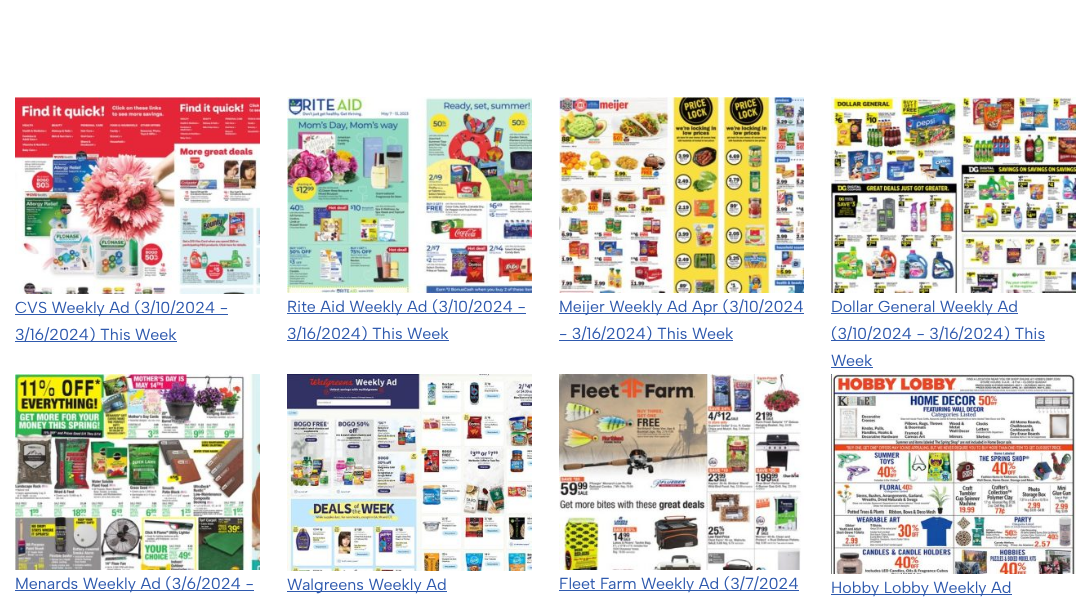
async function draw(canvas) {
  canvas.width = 1091
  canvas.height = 612
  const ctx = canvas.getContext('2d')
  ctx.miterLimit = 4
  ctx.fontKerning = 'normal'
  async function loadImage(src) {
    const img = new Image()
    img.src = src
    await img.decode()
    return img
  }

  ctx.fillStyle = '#fff'
  ctx.fillRect(0, 0, 1091, 612)
  ctx.drawImage(await loadImage('image0.png'), 15, 97, 245, 197)
  ctx.fillStyle = '#2f5aae'
  ctx.fillRect(15, 314, 213, 1)
  ctx.font = '16px Albert Sans'
  ctx.fillText('CVS Weekly Ad (3/10/2024 -', 15, 313)
  ctx.fillRect(15, 341, 162, 1)
  ctx.fillText('3/16/2024) This Week', 15, 340)
  ctx.drawImage(await loadImage('image1.png'), 287, 97, 245, 196)
  ctx.fillRect(287, 313, 239, 1)
  ctx.fillText('Rite Aid Weekly Ad (3/10/2024 -', 287, 312)
  ctx.fillRect(287, 340, 162, 1)
  ctx.fillText('3/16/2024) This Week', 287, 339)
  ctx.drawImage(await loadImage('image2.png'), 559, 97, 245, 196)
  ctx.fillRect(559, 313, 245, 1)
  ctx.fillText('Meijer Weekly Ad Apr (3/10/2024', 559, 312)
  ctx.fillRect(559, 340, 174, 1)
  ctx.fillText('- 3/16/2024) This Week', 559, 339)
  ctx.drawImage(await loadImage('image3.png'), 831, 97, 245, 196)
  ctx.fillRect(831, 313, 187, 1)
  ctx.fillText('Dollar General Weekly Ad', 831, 312)
  ctx.fillRect(831, 340, 214, 1)
  ctx.fillText('(3/10/2024 - 3/16/2024) This', 831, 339)
  ctx.fillText('Week', 831, 366)
  ctx.fillRect(831, 367, 42, 1)
  ctx.drawImage(await loadImage('image4.png'), 15, 374, 245, 196)
  ctx.fillRect(15, 590, 239, 1)
  ctx.fillText('Menards Weekly Ad (3/6/2024 -', 15, 589)
  ctx.drawImage(await loadImage('image5.png'), 287, 374, 245, 197)
  ctx.fillRect(287, 591, 160, 1)
  ctx.fillText('Walgreens Weekly Ad', 287, 590)
  ctx.drawImage(await loadImage('image6.png'), 559, 374, 245, 196)
  ctx.fillRect(559, 590, 240, 1)
  ctx.fillText('Fleet Farm Weekly Ad (3/7/2024', 559, 589)
  ctx.drawImage(await loadImage('image7.png'), 831, 374, 245, 200)
  ctx.fillRect(831, 594, 181, 1)
  ctx.fillText('Hobby Lobby Weekly Ad', 831, 593)
}

draw(document.querySelector('canvas'))
